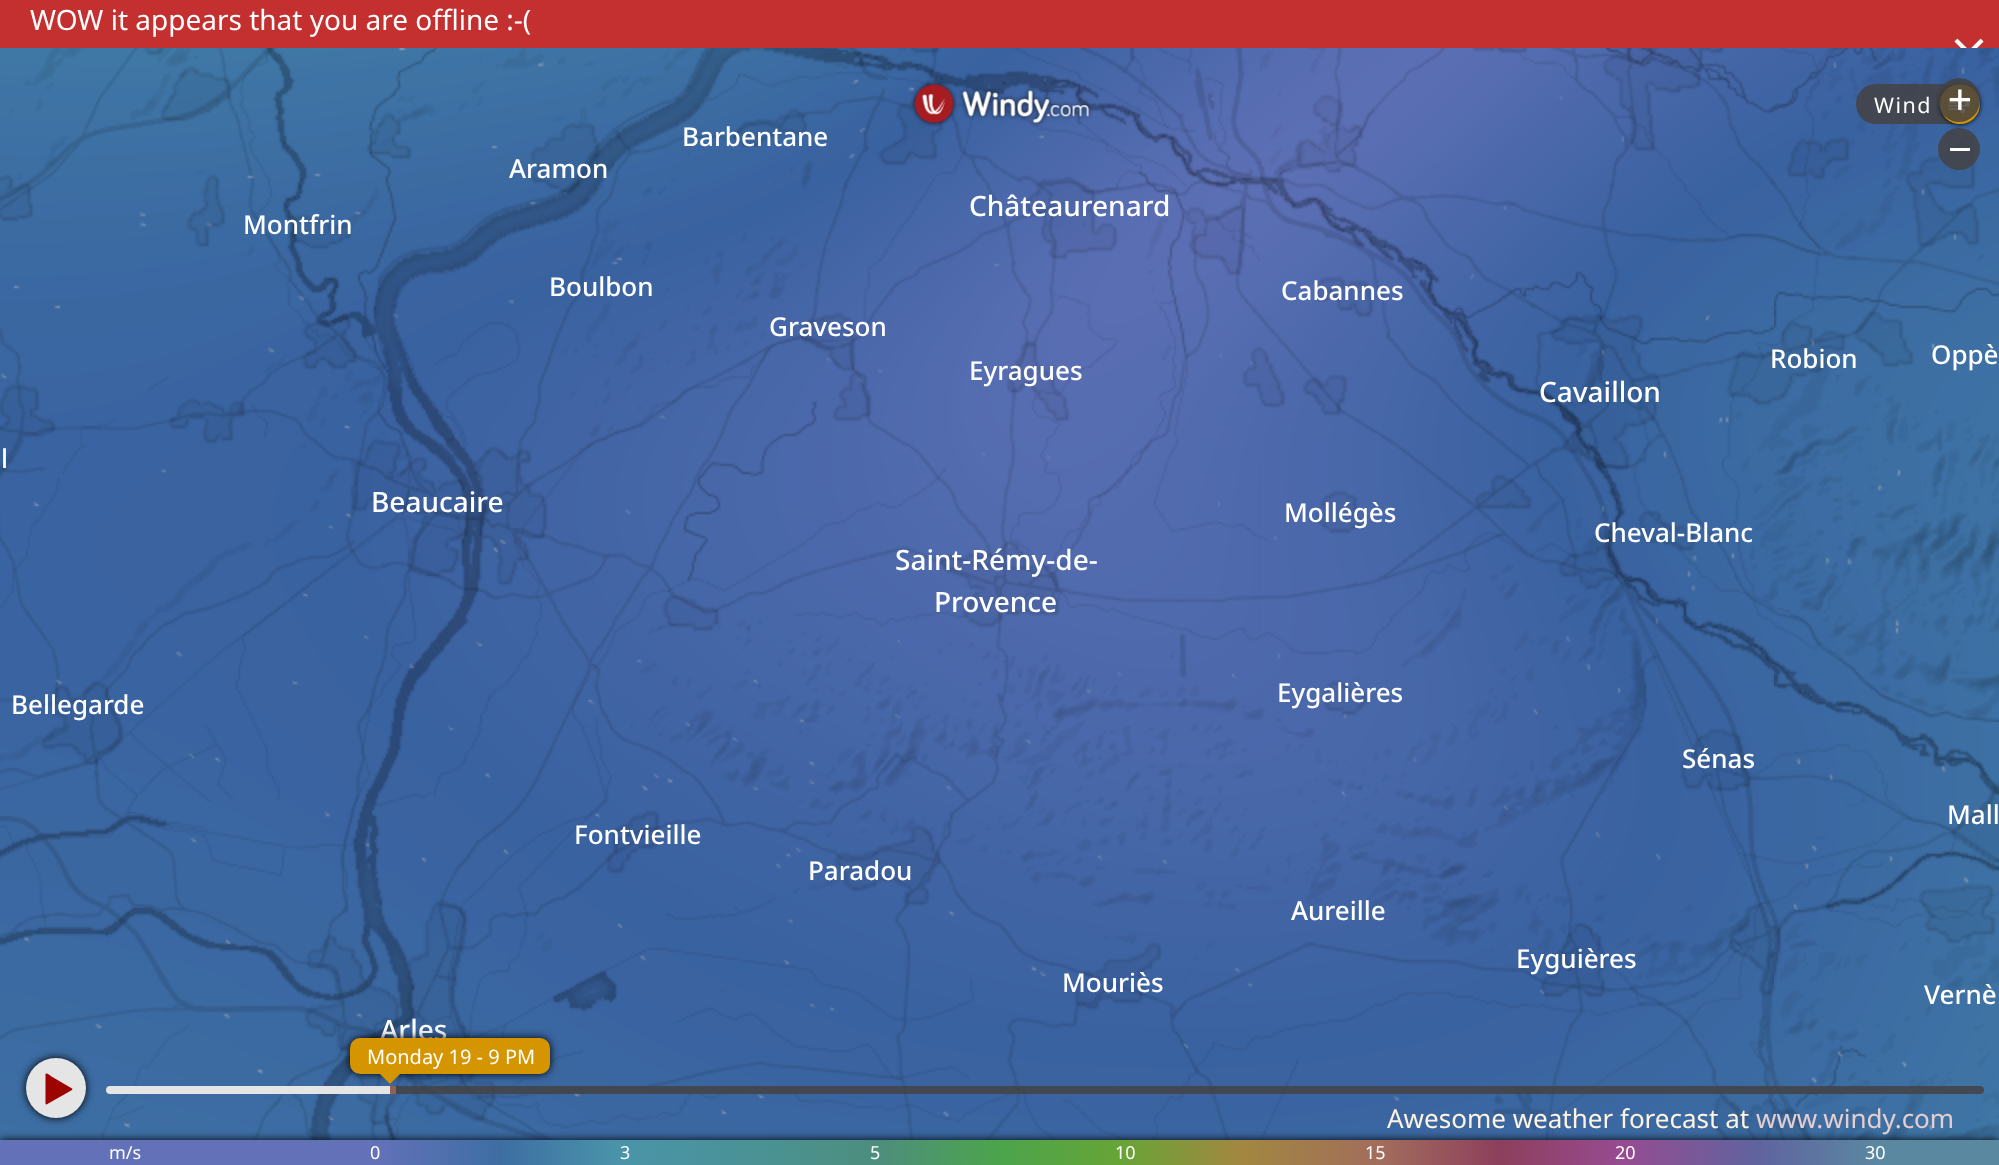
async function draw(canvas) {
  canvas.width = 1999
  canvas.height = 1165
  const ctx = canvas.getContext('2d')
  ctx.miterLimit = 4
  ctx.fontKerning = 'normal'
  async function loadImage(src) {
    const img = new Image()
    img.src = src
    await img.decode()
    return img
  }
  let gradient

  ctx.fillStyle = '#fff'
  ctx.fillRect(0, 0, 1999, 1165)
  ctx.fillStyle = '#c42f2f'
  ctx.fillRect(0, 0, 1999, 48)
  ctx.font = '28px Noto Sans'
  ctx.fillStyle = '#fff'
  ctx.fillText('WOW it appears that you are offline :-(', 30, 30)
  ctx.drawImage(await loadImage('image0.png'), 1954, 38, 30, 10)
  ctx.drawImage(await loadImage('image7.png'), 750, 48, 512, 350)
  ctx.drawImage(await loadImage('image5.png'), 0, 48, 238, 350)
  ctx.drawImage(await loadImage('image6.png'), 238, 48, 512, 350)
  ctx.drawImage(await loadImage('image8.png'), 1262, 48, 512, 350)
  ctx.drawImage(await loadImage('image9.png'), 1774, 48, 225, 350)
  ctx.drawImage(await loadImage('image10.png'), 0, 398, 238, 512)
  ctx.drawImage(await loadImage('image11.png'), 238, 398, 512, 512)
  ctx.drawImage(await loadImage('image12.png'), 750, 398, 512, 512)
  ctx.drawImage(await loadImage('image13.png'), 1262, 398, 512, 512)
  ctx.drawImage(await loadImage('image14.png'), 1774, 398, 225, 512)
  ctx.drawImage(await loadImage('image15.png'), 0, 910, 238, 230)
  ctx.drawImage(await loadImage('image16.png'), 238, 910, 512, 230)
  ctx.drawImage(await loadImage('image17.png'), 750, 910, 512, 230)
  ctx.drawImage(await loadImage('image18.png'), 1262, 910, 512, 230)
  ctx.drawImage(await loadImage('image19.png'), 1774, 910, 225, 230)
  ctx.drawImage(await loadImage('image20.png'), 0, 48, 1969, 1083)
  ctx.drawImage(await loadImage('image23.png'), 750, 48, 512, 350)
  ctx.drawImage(await loadImage('image1.png'), 910, 80, 48, 47)
  ctx.drawImage(await loadImage('image2.png'), 959, 87, 134, 40)
  ctx.drawImage(await loadImage('image25.png'), 1774, 48, 225, 350)
  ctx.fillStyle = '#444141d6'
  ctx.beginPath()
  ctx.roundRect(1856, 84, 124, 40, 20)
  ctx.fill()
  ctx.letterSpacing = '1.5px'
  ctx.font = '21.5px Noto Sans'
  ctx.fillStyle = '#fff'
  ctx.fillText('Wind', 1874, 113)
  ctx.fillStyle = '#000'
  ctx.filter = 'blur(2.5px)'
  ctx.beginPath()
  ctx.roundRect(1940, 84, 40, 40, 20)
  ctx.fill()
  ctx.filter = 'none'
  ctx.fillStyle = '#d49500'
  ctx.beginPath()
  ctx.arc(1960, 104, 20, 0, 2 * Math.PI)
  ctx.fill()
  ctx.drawImage(await loadImage('image3.png'), 1948, 101, 22, 13)
  ctx.fillStyle = '#444141d6'
  ctx.beginPath()
  ctx.roundRect(1938, 78, 42, 44, 21)
  ctx.fill()
  ctx.drawImage(await loadImage('image4.png'), 1949, 89, 22, 21)
  ctx.beginPath()
  ctx.arc(1959, 149, 21, 0, 2 * Math.PI)
  ctx.fill()
  ctx.fillStyle = '#fff'
  ctx.fillRect(1950, 148, 20, 3)
  ctx.drawImage(await loadImage('image21.png'), 0, 48, 238, 350)
  ctx.drawImage(await loadImage('image22.png'), 238, 48, 512, 350)
  ctx.drawImage(await loadImage('image24.png'), 1262, 48, 512, 350)
  ctx.drawImage(await loadImage('image26.png'), 0, 398, 238, 512)
  ctx.drawImage(await loadImage('image27.png'), 238, 398, 512, 512)
  ctx.drawImage(await loadImage('image28.png'), 750, 398, 512, 512)
  ctx.drawImage(await loadImage('image29.png'), 1262, 398, 512, 512)
  ctx.drawImage(await loadImage('image30.png'), 1774, 398, 225, 512)
  ctx.drawImage(await loadImage('image31.png'), 0, 910, 238, 230)
  ctx.drawImage(await loadImage('image32.png'), 238, 910, 512, 230)
  ctx.drawImage(await loadImage('image33.png'), 750, 910, 512, 230)
  ctx.drawImage(await loadImage('image34.png'), 1262, 910, 512, 230)
  ctx.drawImage(await loadImage('image35.png'), 1774, 910, 225, 230)
  ctx.letterSpacing = '0px'
  ctx.font = '500 26px Noto Sans'
  ctx.fillText('Aramon', 509, 178)
  ctx.fillText('Montfrin', 243, 234)
  ctx.fillText('Boulbon', 549, 296)
  ctx.fillText('Barbentane', 682, 146)
  ctx.font = '500 28px Noto Sans'
  ctx.fillText('Châteaurenard', 969, 216)
  ctx.font = '500 26px Noto Sans'
  ctx.fillText('Graveson', 769, 336)
  ctx.fillText('Eyragues', 969, 380)
  ctx.fillText('Cabannes', 1281, 300)
  ctx.font = '500 28px Noto Sans'
  ctx.fillText('Cavaillon', 1539, 402)
  ctx.font = '500 26px Noto Sans'
  ctx.fillText('Robion', 1770, 368)
  ctx.fillText('Oppè', 1931, 364)
  ctx.fillText('l', 1, 468)
  ctx.fillText('Bellegarde', 11, 714)
  ctx.font = '500 28px Noto Sans'
  ctx.fillText('Beaucaire', 371, 512)
  ctx.font = '500 26px Noto Sans'
  ctx.fillText('Fontvieille', 574, 844)
  ctx.font = '500 28px Noto Sans'
  ctx.fillText('Saint-Rémy-de-', 895, 570)
  ctx.fillText('Provence', 934, 612)
  ctx.font = '500 26px Noto Sans'
  ctx.fillText('Paradou', 808, 880)
  ctx.fillText('Mollégès', 1284, 522)
  ctx.fillText('Cheval-Blanc', 1594, 542)
  ctx.fillText('Eygalières', 1277, 702)
  ctx.fillText('Sénas', 1682, 768)
  ctx.fillText('Mall', 1947, 824)
  ctx.fillText('Aureille', 1291, 920)
  ctx.fillText('Eyguières', 1516, 968)
  ctx.fillText('Mouriès', 1062, 992)
  ctx.fillText('Vernè', 1924, 1004)
  ctx.font = '500 28px Noto Sans'
  ctx.fillText('Arles', 380, 1040)
  ctx.fillStyle = '#000'
  ctx.filter = 'blur(4px)'
  ctx.beginPath()
  ctx.roundRect(26, 1058, 60, 60, 30)
  ctx.fill()
  ctx.filter = 'none'
  ctx.fillStyle = '#e5e5e5'
  ctx.beginPath()
  ctx.arc(56, 1088, 30, 0, 2 * Math.PI)
  ctx.fill()
  ctx.fillStyle = '#9d0300'
  ctx.beginPath()
  ctx.moveTo(72.5, 1089)
  ctx.lineTo(72, 1088.5)
  ctx.lineTo(51.5, 1076.5)
  ctx.bezierCurveTo(49.5, 1075, 46.5, 1072.5, 45.5, 1074)
  ctx.lineTo(45.5, 1103.5)
  ctx.bezierCurveTo(45.5, 1104, 46, 1104.5, 46.5, 1104.5)
  ctx.lineTo(72, 1090)
  ctx.closePath()
  ctx.fill()
  ctx.fillStyle = '#000'
  ctx.filter = 'blur(4px)'
  ctx.beginPath()
  ctx.roundRect(350, 1038, 200, 36, 10)
  ctx.fill()
  ctx.filter = 'none'
  ctx.fillStyle = '#d49500'
  ctx.beginPath()
  ctx.roundRect(350, 1038, 200, 36, 10)
  ctx.fill()
  ctx.font = '20px Noto Sans'
  ctx.fillStyle = '#fff'
  ctx.fillText('Monday 19 - 9 PM', 367, 1064)
  ctx.fillStyle = '#d49500'
  ctx.beginPath()
  ctx.moveTo(380, 1074)
  ctx.lineTo(400, 1074)
  ctx.lineTo(390, 1084)
  ctx.closePath()
  ctx.fill()
  ctx.fillStyle = '#444141d6'
  ctx.beginPath()
  ctx.roundRect(106, 1086, 1878, 8, 4)
  ctx.fill()
  ctx.fillStyle = '#e5e5e5'
  ctx.beginPath()
  ctx.roundRect(106, 1086, 284, 8, [4, 0, 0, 4])
  ctx.fill()
  ctx.fillStyle = '#946051'
  ctx.fillRect(390, 1086, 6, 8)
  ctx.fillStyle = '#000'
  ctx.filter = 'blur(4px)'
  ctx.beginPath()
  ctx.rect(0, 1140, 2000, 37)
  ctx.fill()
  ctx.filter = 'none'
  ctx.font = '26px Noto Sans'
  ctx.fillStyle = '#fff3e1'
  ctx.fillText('Awesome weather forecast at', 1387, 1128)
  ctx.fillStyle = '#e6cece'
  ctx.fillText('www.windy.com', 1756, 1128)
  gradient = ctx.createLinearGradient(0, 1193, 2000, 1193)
  gradient.addColorStop(0, '#6271b8')
  gradient.addColorStop(0.19, '#6271b8')
  gradient.addColorStop(0.25, '#3d6ea3')
  gradient.addColorStop(0.31, '#4a94aa')
  gradient.addColorStop(0.38, '#4a9294')
  gradient.addColorStop(0.44, '#4d8e7c')
  gradient.addColorStop(0.5, '#4ca44c')
  gradient.addColorStop(0.56, '#67a436')
  gradient.addColorStop(0.62, '#a28740')
  gradient.addColorStop(0.69, '#a26d5c')
  gradient.addColorStop(0.75, '#8d3f5c')
  gradient.addColorStop(0.81, '#974b91')
  gradient.addColorStop(0.88, '#5f64a0')
  gradient.addColorStop(0.94, '#5b88a1')
  gradient.addColorStop(1, '#5b88a1')
  ctx.fillStyle = gradient
  ctx.fillRect(0, 1140, 1999, 25)
  ctx.font = '18px Noto Sans'
  ctx.fillStyle = '#fff'
  ctx.fillText('m/s', 109, 1159)
  ctx.fillText('0', 370, 1159)
  ctx.fillText('3', 620, 1159)
  ctx.fillText('5', 870, 1159)
  ctx.fillText('10', 1115, 1159)
  ctx.fillText('15', 1365, 1159)
  ctx.fillText('20', 1615, 1159)
  ctx.fillText('30', 1865, 1159)
}

draw(document.querySelector('canvas'))
